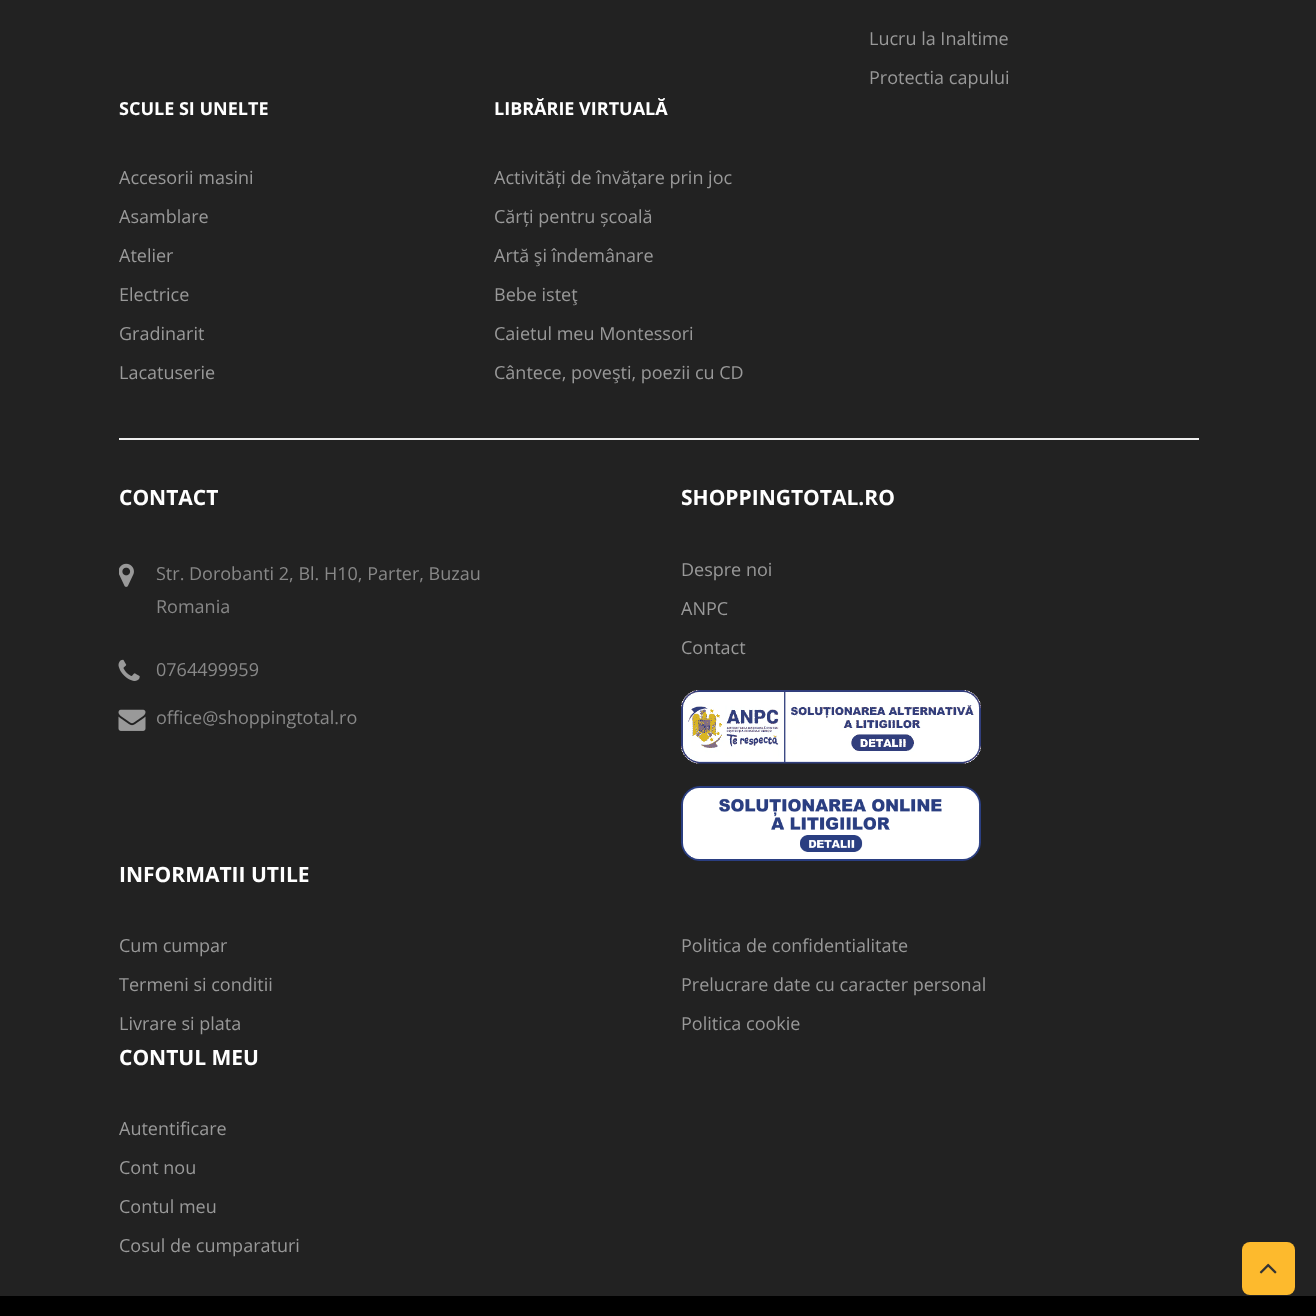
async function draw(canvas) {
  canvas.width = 1316
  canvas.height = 1316
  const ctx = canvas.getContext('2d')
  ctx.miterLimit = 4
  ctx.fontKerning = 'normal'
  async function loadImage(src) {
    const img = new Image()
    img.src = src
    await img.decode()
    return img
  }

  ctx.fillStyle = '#222'
  ctx.fillRect(0, 0, 1316, 1316)
  ctx.font = '18px Open Sans'
  ctx.fillStyle = '#999'
  ctx.fillText('Lucru la Inaltime', 869, 45)
  ctx.fillText('Protectia capului', 869, 84)
  ctx.font = 'bold 18px Open Sans'
  ctx.fillStyle = '#fff'
  ctx.fillText('SCULE SI UNELTE', 119, 115)
  ctx.font = '18px Open Sans'
  ctx.fillStyle = '#999'
  ctx.fillText('Accesorii masini', 119, 184)
  ctx.fillText('Asamblare', 119, 223)
  ctx.fillText('Atelier', 119, 262)
  ctx.fillText('Electrice', 119, 301)
  ctx.fillText('Gradinarit', 119, 340)
  ctx.fillText('Lacatuserie', 119, 379)
  ctx.font = 'bold 18px Open Sans'
  ctx.fillStyle = '#fff'
  ctx.fillText('LIBRĂRIE VIRTUALĂ', 494, 115)
  ctx.font = '18px Open Sans'
  ctx.fillStyle = '#999'
  ctx.fillText('Activități de învățare prin joc', 494, 184)
  ctx.fillText('Cărți pentru școală', 494, 223)
  ctx.fillText('Artă şi îndemânare', 494, 262)
  ctx.fillText('Bebe isteţ', 494, 301)
  ctx.fillText('Caietul meu Montessori', 494, 340)
  ctx.fillText('Cântece, poveşti, poezii cu CD', 494, 379)
  ctx.fillStyle = '#eee'
  ctx.fillRect(119, 438, 1080, 2)
  ctx.font = 'bold 21px Open Sans'
  ctx.fillStyle = '#fff'
  ctx.fillText('CONTACT', 119, 505)
  ctx.drawImage(await loadImage('image0.png'), 119, 563, 15, 24)
  ctx.font = '18px Open Sans'
  ctx.fillStyle = '#888'
  ctx.fillText('Str. Dorobanti 2, Bl. H10, Parter, Buzau', 156, 580)
  ctx.fillText('Romania', 156, 613)
  ctx.drawImage(await loadImage('image1.png'), 118, 659, 22, 22)
  ctx.fillText('0764499959', 156, 676)
  ctx.drawImage(await loadImage('image2.png'), 118, 709, 28, 22)
  ctx.fillText('office@shoppingtotal.ro', 156, 724)
  ctx.font = 'bold 21px Open Sans'
  ctx.fillStyle = '#fff'
  ctx.fillText('SHOPPINGTOTAL.RO', 681, 505)
  ctx.font = '18px Open Sans'
  ctx.fillStyle = '#999'
  ctx.fillText('Despre noi', 681, 576)
  ctx.fillText('ANPC', 681, 615)
  ctx.fillText('Contact', 681, 654)
  ctx.drawImage(await loadImage('image3.png'), 681, 690, 300, 74)
  ctx.drawImage(await loadImage('image4.png'), 681, 786, 300, 75)
  ctx.font = 'bold 21px Open Sans'
  ctx.fillStyle = '#fff'
  ctx.fillText('INFORMATII UTILE', 119, 882)
  ctx.font = '18px Open Sans'
  ctx.fillStyle = '#999'
  ctx.fillText('Cum cumpar', 119, 952)
  ctx.fillText('Termeni si conditii', 119, 991)
  ctx.fillText('Livrare si plata', 119, 1030)
  ctx.fillText('Politica de confidentialitate', 681, 952)
  ctx.fillText('Prelucrare date cu caracter personal', 681, 991)
  ctx.fillText('Politica cookie', 681, 1030)
  ctx.font = 'bold 21px Open Sans'
  ctx.fillStyle = '#fff'
  ctx.fillText('CONTUL MEU', 119, 1065)
  ctx.font = '18px Open Sans'
  ctx.fillStyle = '#999'
  ctx.fillText('Autentificare', 119, 1135)
  ctx.fillText('Cont nou', 119, 1174)
  ctx.fillText('Contul meu', 119, 1213)
  ctx.fillText('Cosul de cumparaturi', 119, 1252)
  ctx.fillStyle = '#fdba2d'
  ctx.beginPath()
  ctx.roundRect(1242, 1242, 53, 53, 8)
  ctx.fill()
  ctx.drawImage(await loadImage('image5.png'), 1259, 1263, 18, 11)
  ctx.fillStyle = '#000'
  ctx.fillRect(0, 1296, 1316, 20)
}

draw(document.querySelector('canvas'))
